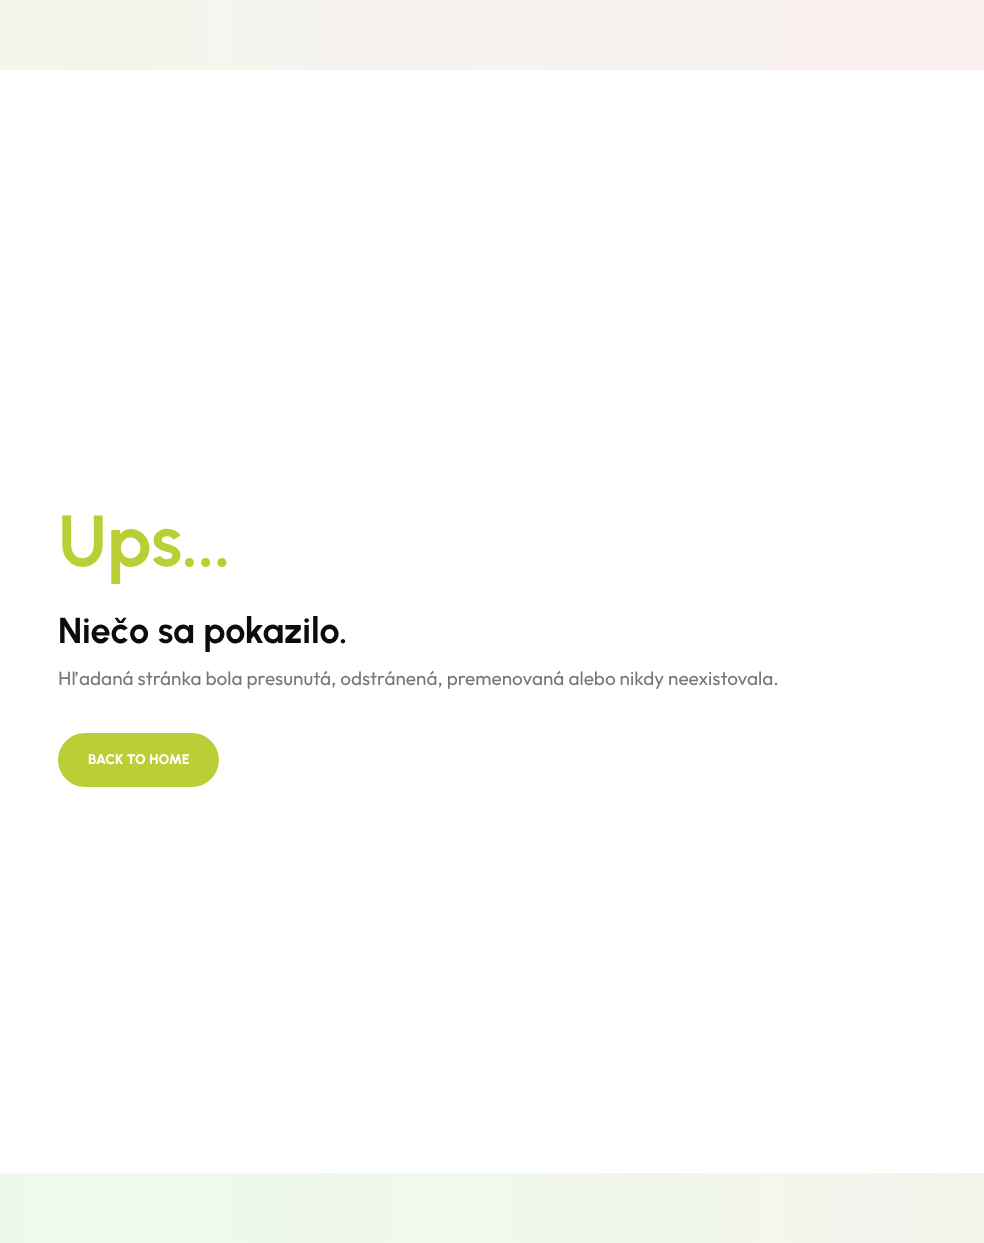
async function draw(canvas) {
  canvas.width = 984
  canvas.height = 1243
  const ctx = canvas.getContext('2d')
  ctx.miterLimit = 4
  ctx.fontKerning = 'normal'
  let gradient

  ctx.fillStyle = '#fff'
  ctx.fillRect(0, 0, 984, 1243)
  gradient = ctx.createLinearGradient(-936, 35, 984, 35)
  gradient.addColorStop(0, '#eef9ec')
  gradient.addColorStop(1, '#faf1ef')
  ctx.fillStyle = gradient
  ctx.fillRect(0, 0, 984, 70)
  gradient = ctx.createLinearGradient(0, 1208, 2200, 1208)
  gradient.addColorStop(0, '#eef9ec')
  gradient.addColorStop(1, '#faf1ef')
  ctx.fillStyle = gradient
  ctx.fillRect(0, 1173, 984, 70)
  ctx.font = 'bold 72px Urbanist'
  ctx.fillStyle = '#bacf36'
  ctx.fillText('Ups...', 58, 566)
  ctx.font = 'bold 36px Urbanist'
  ctx.fillStyle = '#0c0c0c'
  ctx.fillText('Niečo sa pokazilo.', 58, 643)
  ctx.font = '19px Outfit'
  ctx.fillStyle = '#7b7675'
  ctx.fillText('Hľadaná stránka bola presunutá, odstránená, premenovaná alebo nikdy neexistovala.', 58, 685)
  ctx.fillStyle = '#bacf36'
  ctx.beginPath()
  ctx.roundRect(58, 733, 161, 54, 27)
  ctx.fill()
  ctx.font = '800 14px Urbanist'
  ctx.fillStyle = '#fff'
  ctx.fillText('BACK TO HOME', 88, 764)
}

draw(document.querySelector('canvas'))
